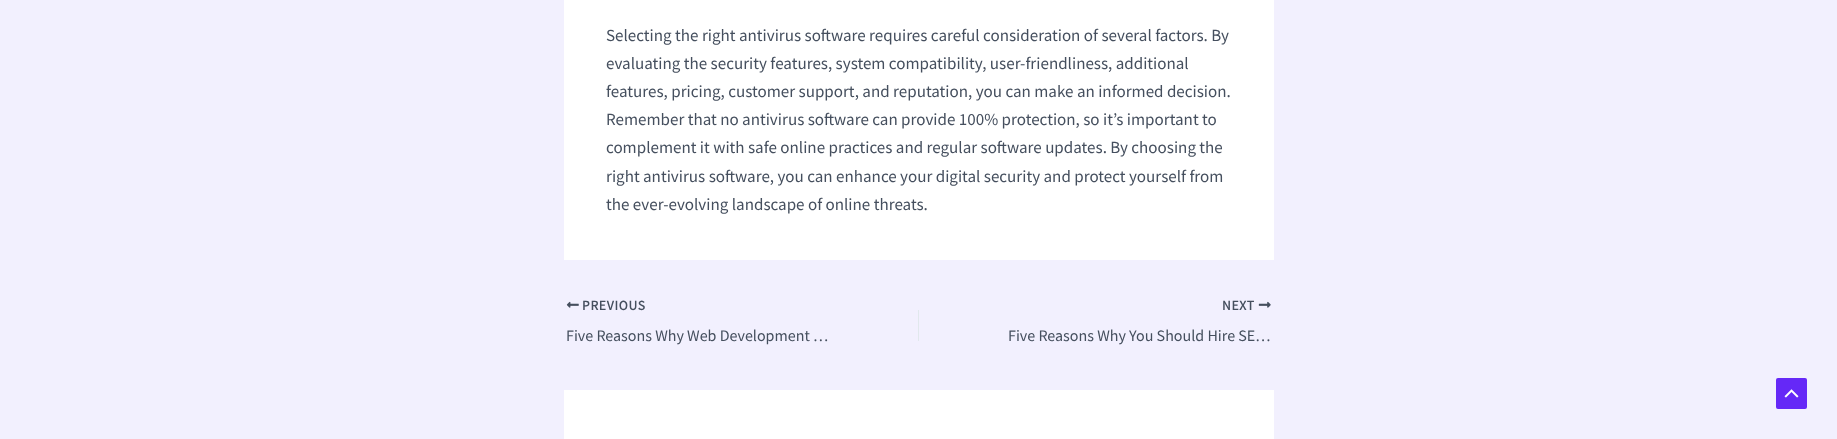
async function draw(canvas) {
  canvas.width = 1837
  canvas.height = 439
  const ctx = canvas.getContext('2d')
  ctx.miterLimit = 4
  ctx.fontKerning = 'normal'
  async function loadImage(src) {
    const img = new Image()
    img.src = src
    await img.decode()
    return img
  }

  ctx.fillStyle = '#f2f0fe'
  ctx.fillRect(0, 0, 1837, 439)
  ctx.fillStyle = '#fff'
  ctx.fillRect(564, 0, 710, 260)
  ctx.font = '17px Source Sans Pro'
  ctx.fillStyle = '#454f5e'
  ctx.fillText('Selecting the right antivirus software requires careful consideration of several factors. By', 606, 41)
  ctx.fillText('evaluating the security features, system compatibility, user-friendliness, additional', 606, 69)
  ctx.fillText('features, pricing, customer support, and reputation, you can make an informed decision.', 606, 97)
  ctx.fillText('Remember that no antivirus software can provide 100% protection, so it’s important to', 606, 125)
  ctx.fillText('complement it with safe online practices and regular software updates. By choosing the', 606, 153)
  ctx.fillText('right antivirus software, you can enhance your digital security and protect yourself from', 606, 182)
  ctx.fillText('the ever-evolving landscape of online threats.', 606, 210)
  ctx.drawImage(await loadImage('image0.png'), 566, 301, 13, 7)
  ctx.letterSpacing = '0.75px'
  ctx.font = 'bold 13.5px Source Sans Pro'
  ctx.fillText('PREVIOUS', 582, 310)
  ctx.letterSpacing = '0px'
  ctx.font = '16px Source Sans Pro'
  ctx.fillText('Five Reasons Why Web Development …', 566, 341)
  ctx.fillStyle = '#e1e8ed'
  ctx.fillRect(918, 310, 1, 31)
  ctx.letterSpacing = '0.75px'
  ctx.font = 'bold 13.5px Source Sans Pro'
  ctx.fillStyle = '#454f5e'
  ctx.fillText('NEXT', 1222, 310)
  ctx.drawImage(await loadImage('image1.png'), 1258, 301, 13, 7)
  ctx.letterSpacing = '0px'
  ctx.font = '16px Source Sans Pro'
  ctx.fillText('Five Reasons Why You Should Hire SE…', 1008, 341)
  ctx.fillStyle = '#fff'
  ctx.fillRect(564, 390, 710, 49)
  ctx.fillStyle = '#6528f7'
  ctx.beginPath()
  ctx.roundRect(1776, 378, 31, 31, 2)
  ctx.fill()
  ctx.drawImage(await loadImage('image2.png'), 1784, 389, 15, 9)
}

draw(document.querySelector('canvas'))
